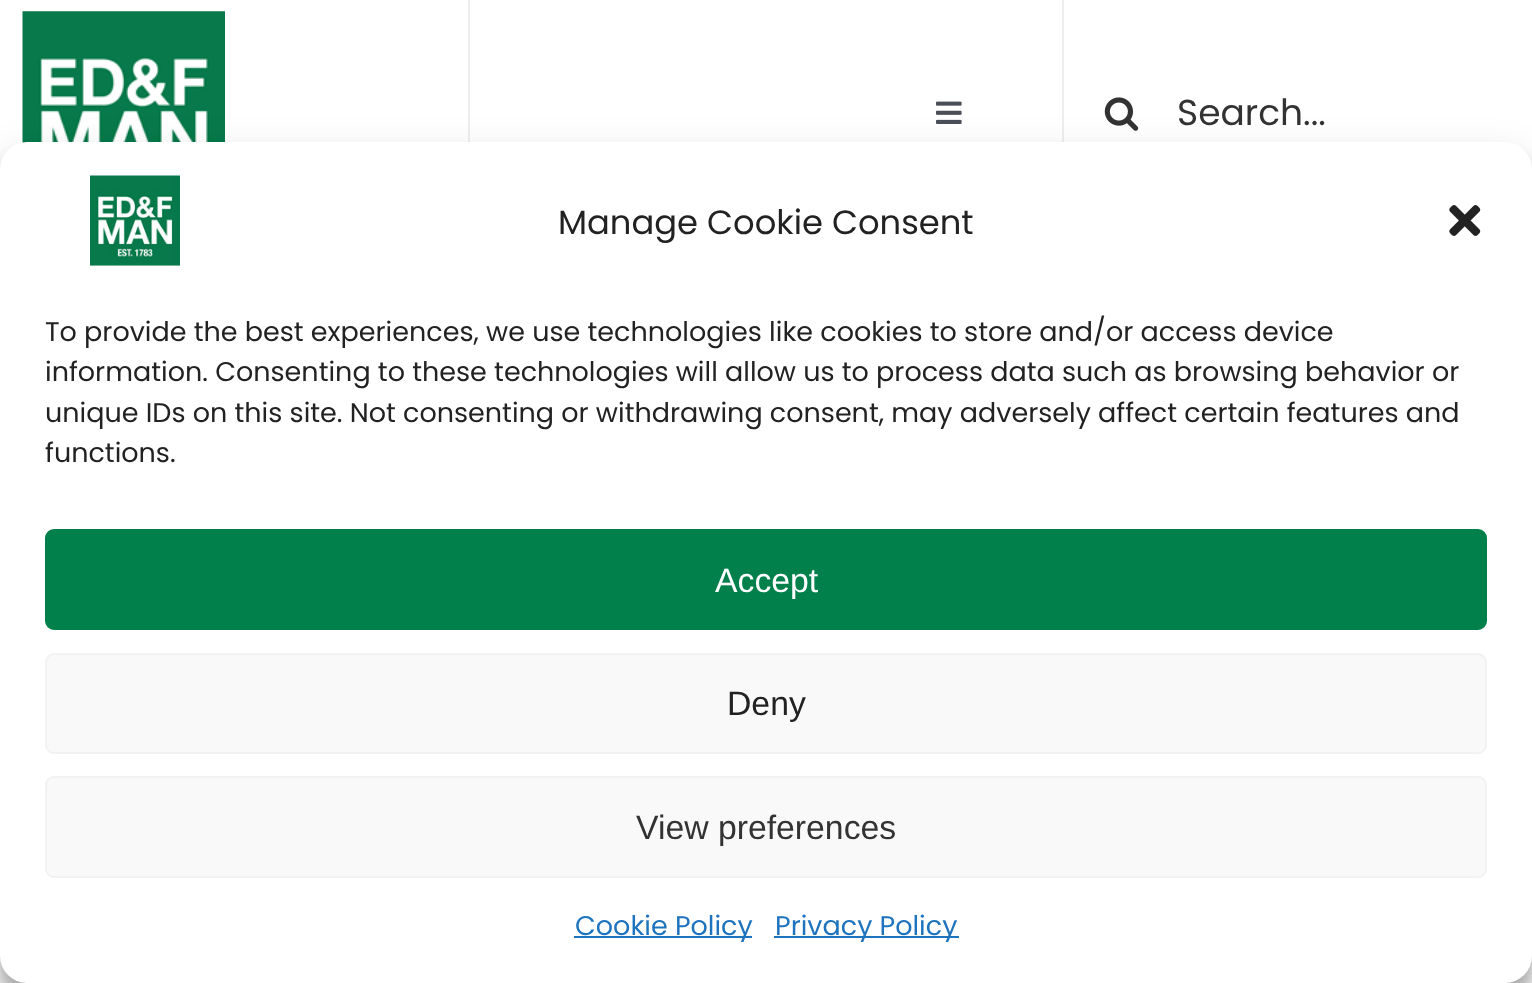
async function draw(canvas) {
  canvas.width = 1532
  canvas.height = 983
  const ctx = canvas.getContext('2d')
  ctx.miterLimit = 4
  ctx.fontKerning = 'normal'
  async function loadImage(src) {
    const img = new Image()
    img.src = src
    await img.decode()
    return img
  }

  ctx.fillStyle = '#fff'
  ctx.fillRect(0, 0, 1532, 983)
  ctx.fillStyle = '#eee'
  ctx.fillRect(468, 0, 2, 142)
  ctx.drawImage(await loadImage('image0.png'), 22, 11, 203, 132)
  ctx.drawImage(await loadImage('image1.png'), 936, 101, 26, 23)
  ctx.fillRect(1062, 0, 2, 142)
  ctx.drawImage(await loadImage('image2.png'), 1104, 97, 35, 34)
  ctx.font = '36px Poppins'
  ctx.fillStyle = '#333'
  ctx.fillText('Search...', 1177, 125)
  ctx.fillStyle = '#0000003b'
  ctx.filter = 'blur(7px)'
  ctx.beginPath()
  ctx.roundRect(0, 155, 1532, 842, 27)
  ctx.fill()
  ctx.filter = 'none'
  ctx.fillStyle = '#00000030'
  ctx.filter = 'blur(22.5px)'
  ctx.beginPath()
  ctx.roundRect(0, 164, 1532, 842, 27)
  ctx.fill()
  ctx.filter = 'none'
  ctx.fillStyle = '#fff'
  ctx.beginPath()
  ctx.roundRect(0, 142, 1532, 841, 27)
  ctx.fill()
  ctx.drawImage(await loadImage('image3.png'), 90, 175, 90, 91)
  ctx.font = '33.75px Poppins'
  ctx.fillStyle = '#222'
  ctx.fillText('Manage Cookie Consent', 558, 234)
  ctx.drawImage(await loadImage('image4.png'), 1449, 205, 32, 31)
  ctx.font = '27px Poppins'
  ctx.fillText('To provide the best experiences, we use technologies like cookies to store and/or access device', 45, 341)
  ctx.fillText('information. Consenting to these technologies will allow us to process data such as browsing behavior or', 45, 381)
  ctx.fillText('unique IDs on this site. Not consenting or withdrawing consent, may adversely affect certain features and', 45, 422)
  ctx.fillText('functions.', 45, 462)
  ctx.fillStyle = '#02804b'
  ctx.beginPath()
  ctx.roundRect(46, 530, 1440, 99, 8)
  ctx.fill()
  ctx.strokeStyle = '#02804b'
  ctx.lineWidth = 2
  ctx.stroke()
  ctx.font = '33.75px Liberation Sans'
  ctx.fillStyle = '#fff'
  ctx.fillText('Accept', 715, 592)
  ctx.fillStyle = '#f9f9f9'
  ctx.beginPath()
  ctx.roundRect(46, 654, 1440, 99, 8)
  ctx.fill()
  ctx.strokeStyle = '#f2f2f2'
  ctx.stroke()
  ctx.fillStyle = '#222'
  ctx.fillText('Deny', 727, 715)
  ctx.fillStyle = '#f9f9f9'
  ctx.beginPath()
  ctx.roundRect(46, 777, 1440, 100, 8)
  ctx.fill()
  ctx.stroke()
  ctx.fillStyle = '#333'
  ctx.fillText('View preferences', 636, 839)
  ctx.fillStyle = '#1e73be'
  ctx.fillRect(574, 936, 178, 2)
  ctx.font = '27px Poppins'
  ctx.fillText('Cookie Policy', 575, 935)
  ctx.fillRect(774, 936, 185, 2)
  ctx.fillText('Privacy Policy', 775, 935)
}

draw(document.querySelector('canvas'))
